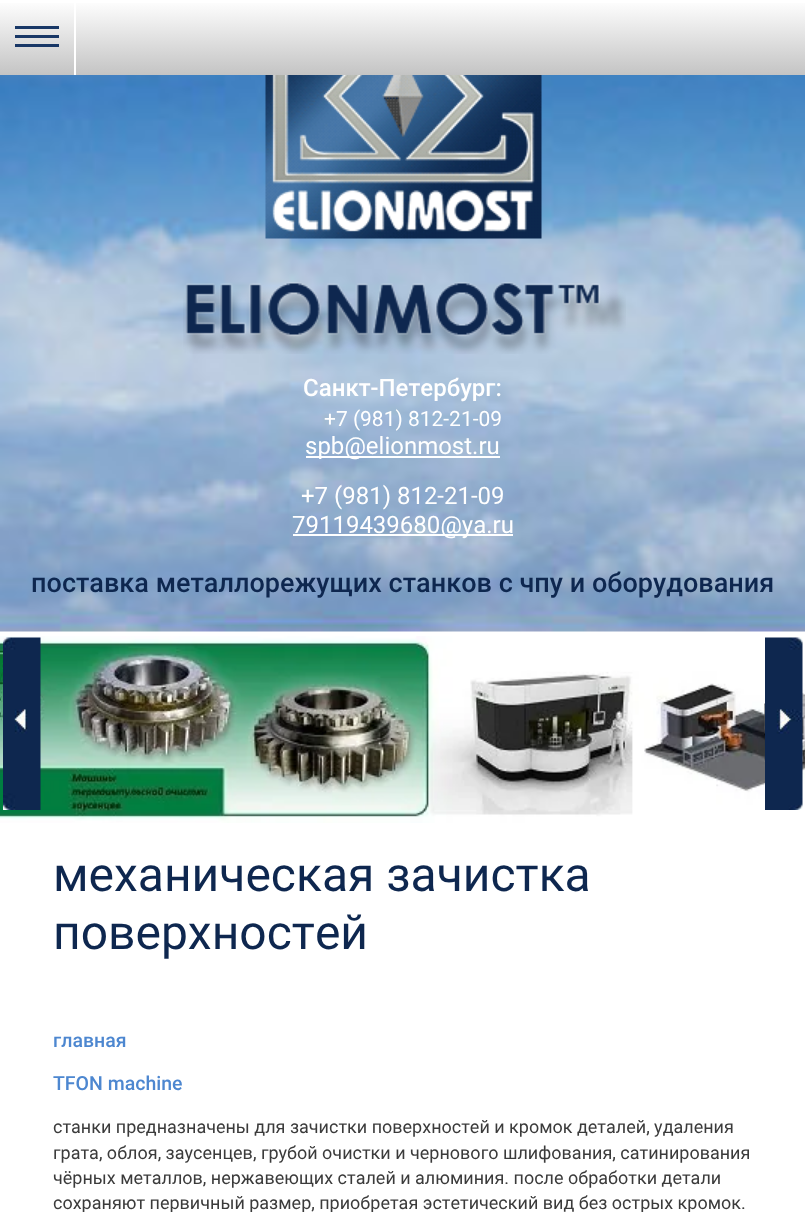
async function draw(canvas) {
  canvas.width = 805
  canvas.height = 1212
  const ctx = canvas.getContext('2d')
  ctx.miterLimit = 4
  ctx.fontKerning = 'normal'
  async function loadImage(src) {
    const img = new Image()
    img.src = src
    await img.decode()
    return img
  }
  let gradient

  ctx.fillStyle = '#fff'
  ctx.fillRect(0, 0, 805, 1212)
  gradient = ctx.createLinearGradient(403, 0, 403, 75)
  gradient.addColorStop(0, '#fff')
  gradient.addColorStop(1, '#c4c4c4')
  ctx.fillStyle = gradient
  ctx.fillRect(0, 3, 805, 72)
  ctx.fillStyle = '#fff'
  ctx.fillRect(74, 0, 2, 75)
  ctx.fillStyle = '#183766'
  ctx.fillRect(15, 26, 44, 3)
  ctx.fillRect(15, 35, 44, 3)
  ctx.fillRect(15, 44, 44, 3)
  ctx.drawImage(await loadImage('image0.png'), 0, 75, 805, 557)
  ctx.drawImage(await loadImage('image1.png'), 265, 75, 277, 164)
  ctx.drawImage(await loadImage('image2.png'), 183, 282, 443, 72)
  ctx.font = '500 24px Roboto'
  ctx.fillStyle = '#fff'
  ctx.fillText('Санкт-Петербург:', 303, 396)
  ctx.font = '21px Roboto'
  ctx.fillText('+7 (981) 812-21-09', 324, 426)
  ctx.fillRect(306, 456, 194, 2)
  ctx.font = '24px Roboto'
  ctx.fillText('spb@elionmost.ru', 305, 454)
  ctx.fillText('+7 (981) 812-21-09', 301, 504)
  ctx.fillRect(293, 534, 220, 2)
  ctx.fillText('79119439680@ya.ru', 292, 533)
  ctx.font = '500 27px Roboto'
  ctx.fillStyle = '#0e274f'
  ctx.fillText('поставка металлорежущих станков с чпу и оборудования', 31, 592)
  ctx.drawImage(await loadImage('image3.png'), 0, 636, 805, 187)
  ctx.drawImage(await loadImage('image4.png'), 3, 637, 38, 173)
  ctx.drawImage(await loadImage('image5.png'), 765, 637, 38, 173)
  ctx.font = '48px Roboto'
  ctx.fillText('механическая зачистка', 53, 891)
  ctx.fillText('поверхностей', 53, 949)
  ctx.font = '500 19.5px Roboto'
  ctx.fillStyle = '#4d87d0'
  ctx.fillText('главная', 53, 1047)
  ctx.fillText('TFON machine', 53, 1090)
  ctx.font = '18px Roboto'
  ctx.fillStyle = '#3b3b3b'
  ctx.fillText('станки предназначены для зачистки поверхностей и кромок деталей, удаления', 53, 1133)
  ctx.fillText('грата, облоя, заусенцев, грубой очистки и чернового шлифования, сатинирования', 53, 1159)
  ctx.fillText('чёрных металлов, нержавеющих сталей и алюминия. после обработки детали', 53, 1184)
  ctx.fillText('сохраняют первичный размер, приобретая эстетический вид без острых кромок.', 53, 1209)
}

draw(document.querySelector('canvas'))
